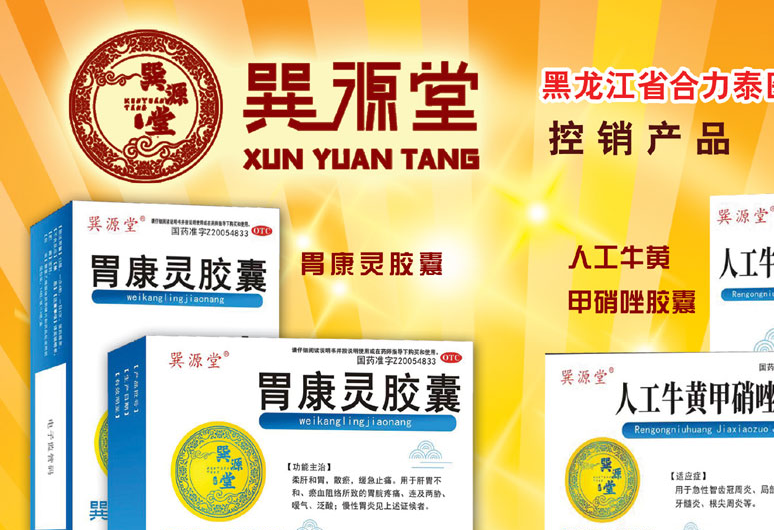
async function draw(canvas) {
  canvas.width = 774
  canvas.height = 530
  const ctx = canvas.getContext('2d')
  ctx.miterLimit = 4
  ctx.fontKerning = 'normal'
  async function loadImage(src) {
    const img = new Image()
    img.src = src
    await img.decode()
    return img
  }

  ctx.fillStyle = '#fff'
  ctx.fillRect(0, 0, 774, 530)
  ctx.drawImage(await loadImage('image0.png'), 0, 0, 774, 342)
  ctx.drawImage(await loadImage('image1.png'), 0, 342, 774, 188)
}

draw(document.querySelector('canvas'))
